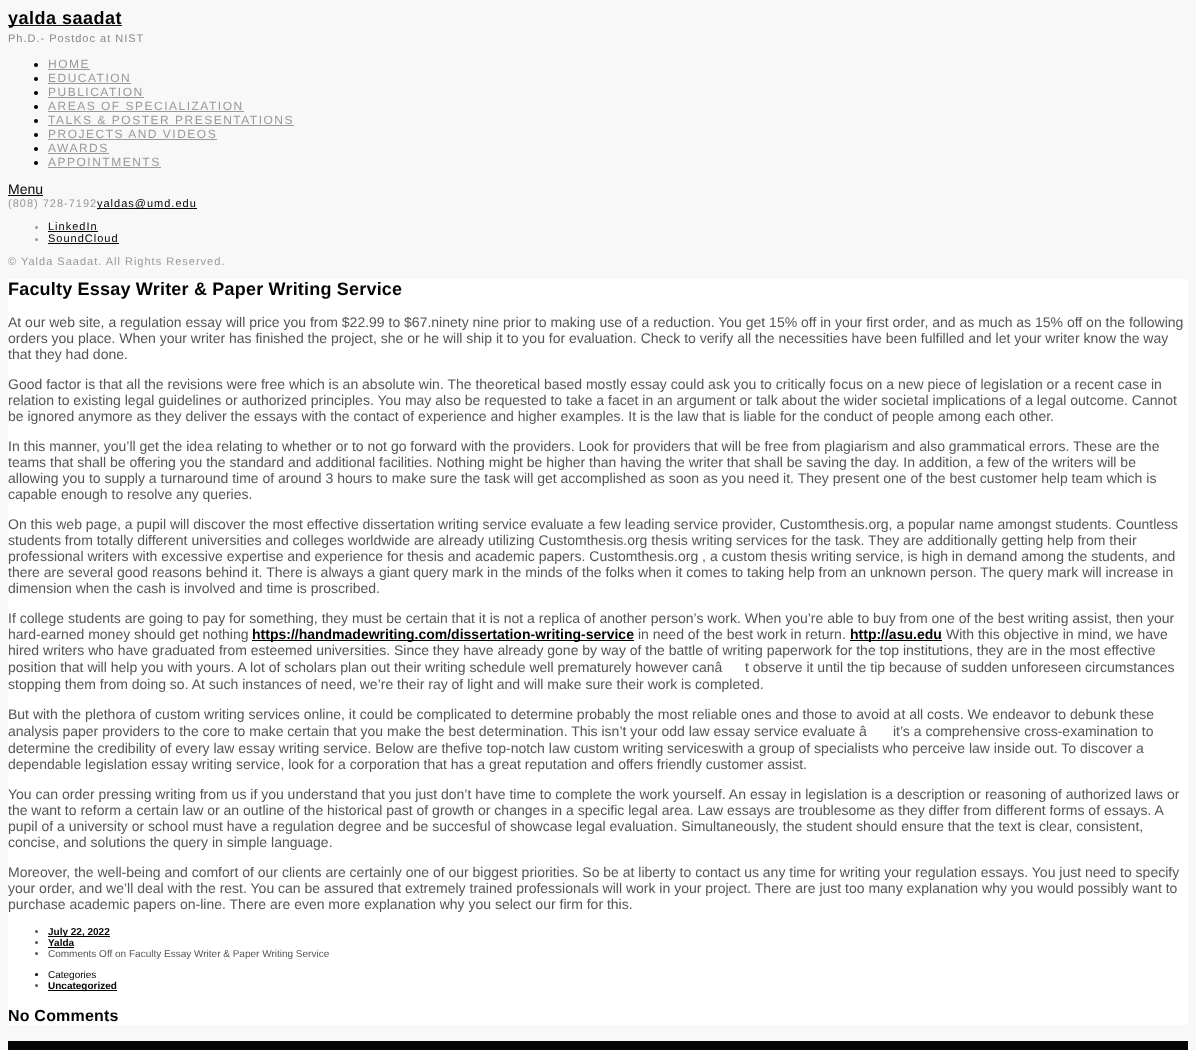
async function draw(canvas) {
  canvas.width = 1196
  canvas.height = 1050
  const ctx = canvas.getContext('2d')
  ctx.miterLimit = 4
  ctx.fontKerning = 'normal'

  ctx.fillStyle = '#f8f8f8'
  ctx.fillRect(0, 0, 1196, 1050)
  ctx.fillStyle = '#00e'
  ctx.fillRect(8, 25, 114, 1)
  ctx.letterSpacing = '0.5px'
  ctx.font = 'bold 18px Arimo'
  ctx.fillStyle = '#050505'
  ctx.fillText('yalda saadat', 8, 24)
  ctx.letterSpacing = '1px'
  ctx.font = '11px Arimo'
  ctx.fillStyle = '#888'
  ctx.fillText('Ph.D.- Postdoc at NIST', 8, 42)
  ctx.fillStyle = '#000'
  ctx.beginPath()
  ctx.arc(36, 65, 2, 0, 2 * Math.PI)
  ctx.fill()
  ctx.letterSpacing = '1.5px'
  ctx.font = '12px Arimo'
  ctx.fillStyle = '#999'
  ctx.fillText('HOME', 48, 68)
  ctx.fillRect(48, 69, 42, 1)
  ctx.fillStyle = '#000'
  ctx.beginPath()
  ctx.arc(36, 79, 2, 0, 2 * Math.PI)
  ctx.fill()
  ctx.fillStyle = '#999'
  ctx.fillText('EDUCATION', 48, 82)
  ctx.fillRect(48, 83, 83, 1)
  ctx.fillStyle = '#000'
  ctx.beginPath()
  ctx.arc(36, 93, 2, 0, 2 * Math.PI)
  ctx.fill()
  ctx.fillStyle = '#999'
  ctx.fillText('PUBLICATION', 48, 96)
  ctx.fillRect(48, 97, 96, 1)
  ctx.fillStyle = '#000'
  ctx.beginPath()
  ctx.arc(36, 107, 2, 0, 2 * Math.PI)
  ctx.fill()
  ctx.fillStyle = '#999'
  ctx.fillText('AREAS OF SPECIALIZATION', 48, 110)
  ctx.fillRect(48, 111, 196, 1)
  ctx.fillStyle = '#000'
  ctx.beginPath()
  ctx.arc(36, 121, 2, 0, 2 * Math.PI)
  ctx.fill()
  ctx.fillStyle = '#999'
  ctx.fillText('TALKS & POSTER PRESENTATIONS', 48, 124)
  ctx.fillRect(48, 125, 246, 1)
  ctx.fillStyle = '#000'
  ctx.beginPath()
  ctx.arc(36, 135, 2, 0, 2 * Math.PI)
  ctx.fill()
  ctx.fillStyle = '#999'
  ctx.fillText('PROJECTS AND VIDEOS', 48, 138)
  ctx.fillRect(48, 139, 169, 1)
  ctx.fillStyle = '#000'
  ctx.beginPath()
  ctx.arc(36, 149, 2, 0, 2 * Math.PI)
  ctx.fill()
  ctx.fillStyle = '#999'
  ctx.fillText('AWARDS', 48, 152)
  ctx.fillRect(48, 153, 61, 1)
  ctx.fillStyle = '#000'
  ctx.beginPath()
  ctx.arc(36, 163, 2, 0, 2 * Math.PI)
  ctx.fill()
  ctx.fillStyle = '#999'
  ctx.fillText('APPOINTMENTS', 48, 166)
  ctx.fillRect(48, 167, 113, 1)
  ctx.letterSpacing = '0px'
  ctx.font = '14px Arimo'
  ctx.fillStyle = '#050505'
  ctx.fillText('Menu', 8, 194)
  ctx.fillRect(8, 195, 35, 1)
  ctx.letterSpacing = '1px'
  ctx.font = '11px Arimo'
  ctx.fillStyle = '#999'
  ctx.fillText('(808) 728-7192', 8, 207)
  ctx.fillStyle = '#050505'
  ctx.fillRect(97, 208, 100, 1)
  ctx.fillText('yaldas@umd.edu', 97, 207)
  ctx.fillStyle = '#999'
  ctx.beginPath()
  ctx.arc(36.5, 227.5, 1.5, 0, 2 * Math.PI)
  ctx.fill()
  ctx.fillStyle = '#050505'
  ctx.fillText('LinkedIn', 48, 230)
  ctx.fillRect(48, 231, 50, 1)
  ctx.fillStyle = '#999'
  ctx.beginPath()
  ctx.arc(36.5, 239.5, 1.5, 0, 2 * Math.PI)
  ctx.fill()
  ctx.fillStyle = '#050505'
  ctx.fillText('SoundCloud', 48, 242)
  ctx.fillRect(48, 243, 71, 1)
  ctx.fillStyle = '#999'
  ctx.fillText('© Yalda Saadat. All Rights Reserved.', 8, 265)
  ctx.fillStyle = '#fff'
  ctx.fillRect(8, 279, 1180, 746)
  ctx.letterSpacing = '0.2px'
  ctx.font = 'bold 18px Arimo'
  ctx.fillStyle = '#050505'
  ctx.fillText('Faculty Essay Writer & Paper Writing Service', 8, 295)
  ctx.letterSpacing = '0px'
  ctx.font = '14px Arimo'
  ctx.fillStyle = '#555'
  ctx.fillText('At our web site, a regulation essay will price you from $22.99 to $67.ninety nine prior to making use of a reduction. You get 15% off in your first order, and as much as 15% off on the following', 8, 327)
  ctx.fillText('orders you place. When your writer has finished the project, she or he will ship it to you for evaluation. Check to verify all the necessities have been fulfilled and let your writer know the way', 8, 343)
  ctx.fillText('that they had done.', 8, 359)
  ctx.fillText('Good factor is that all the revisions were free which is an absolute win. The theoretical based mostly essay could ask you to critically focus on a new piece of legislation or a recent case in', 8, 389)
  ctx.fillText('relation to existing legal guidelines or authorized principles. You may also be requested to take a facet in an argument or talk about the wider societal implications of a legal outcome. Cannot', 8, 405)
  ctx.fillText('be ignored anymore as they deliver the essays with the contact of experience and higher examples. It is the law that is liable for the conduct of people among each other.', 8, 421)
  ctx.fillText('In this manner, you’ll get the idea relating to whether or to not go forward with the providers. Look for providers that will be free from plagiarism and also grammatical errors. These are the', 8, 451)
  ctx.fillText('teams that shall be offering you the standard and additional facilities. Nothing might be higher than having the writer that shall be saving the day. In addition, a few of the writers will be', 8, 467)
  ctx.fillText('allowing you to supply a turnaround time of around 3 hours to make sure the task will get accomplished as soon as you need it. They present one of the best customer help team which is', 8, 483)
  ctx.fillText('capable enough to resolve any queries.', 8, 499)
  ctx.fillText('On this web page, a pupil will discover the most effective dissertation writing service evaluate a few leading service provider, Customthesis.org, a popular name amongst students. Countless', 8, 529)
  ctx.fillText('students from totally different universities and colleges worldwide are already utilizing Customthesis.org thesis writing services for the task. They are additionally getting help from their', 8, 545)
  ctx.fillText('professional writers with excessive expertise and experience for thesis and academic papers. Customthesis.org , a custom thesis writing service, is high in demand among the students, and', 8, 561)
  ctx.fillText('there are several good reasons behind it. There is always a giant query mark in the minds of the folks when it comes to taking help from an unknown person. The query mark will increase in', 8, 577)
  ctx.fillText('dimension when the cash is involved and time is proscribed.', 8, 593)
  ctx.fillText('If college students are going to pay for something, they must be certain that it is not a replica of another person’s work. When you’re able to buy from one of the best writing assist, then your', 8, 623)
  ctx.fillText('hard-earned money should get nothing', 8, 639)
  ctx.fillStyle = '#050505'
  ctx.fillRect(252, 640, 382, 1)
  ctx.font = 'bold 14px Arimo'
  ctx.fillText('https://handmadewriting.com/dissertation-writing-service', 252, 639)
  ctx.font = '14px Arimo'
  ctx.fillStyle = '#555'
  ctx.fillText('in need of the best work in return.', 638, 639)
  ctx.fillStyle = '#050505'
  ctx.fillRect(850, 640, 92, 1)
  ctx.font = 'bold 14px Arimo'
  ctx.fillText('http://asu.edu', 850, 639)
  ctx.font = '14px Arimo'
  ctx.fillStyle = '#555'
  ctx.fillText('With this objective in mind, we have', 946, 639)
  ctx.fillText('hired writers who have graduated from esteemed universities. Since they have already gone by way of the battle of writing paperwork for the top institutions, they are in the most effective', 8, 655)
  ctx.fillText('position that will help you with yours. A lot of scholars plan out their writing schedule well prematurely however canâ', 8, 672)
  ctx.fillText('t observe it until the tip because of sudden unforeseen circumstances', 745, 672)
  ctx.fillText('stopping them from doing so. At such instances of need, we’re their ray of light and will make sure their work is completed.', 8, 689)
  ctx.fillText('But with the plethora of custom writing services online, it could be complicated to determine probably the most reliable ones and those to avoid at all costs. We endeavor to debunk these', 8, 719)
  ctx.fillText('analysis paper providers to the core to make certain that you make the best determination. This isn’t your odd law essay service evaluate â', 8, 736)
  ctx.fillText('it’s a comprehensive cross-examination to', 893, 736)
  ctx.fillText('determine the credibility of every law essay writing service. Below are thefive top-notch law custom writing serviceswith a group of specialists who perceive law inside out. To discover a', 8, 753)
  ctx.fillText('dependable legislation essay writing service, look for a corporation that has a great reputation and offers friendly customer assist.', 8, 769)
  ctx.fillText('You can order pressing writing from us if you understand that you just don’t have time to complete the work yourself. An essay in legislation is a description or reasoning of authorized laws or', 8, 799)
  ctx.fillText('the want to reform a certain law or an outline of the historical past of growth or changes in a specific legal area. Law essays are troublesome as they differ from different forms of essays. A', 8, 815)
  ctx.fillText('pupil of a university or school must have a regulation degree and be succesful of showcase legal evaluation. Simultaneously, the student should ensure that the text is clear, consistent,', 8, 831)
  ctx.fillText('concise, and solutions the query in simple language.', 8, 847)
  ctx.fillText('Moreover, the well-being and comfort of our clients are certainly one of our biggest priorities. So be at liberty to contact us any time for writing your regulation essays. You just need to specify', 8, 877)
  ctx.fillText('your order, and we’ll deal with the rest. You can be assured that extremely trained professionals will work in your project. There are just too many explanation why you would possibly want to', 8, 893)
  ctx.fillText('purchase academic papers on-line. There are even more explanation why you select our firm for this.', 8, 909)
  ctx.beginPath()
  ctx.arc(36.5, 931.5, 1.5, 0, 2 * Math.PI)
  ctx.fill()
  ctx.fillStyle = '#050505'
  ctx.fillRect(48, 936, 62, 1)
  ctx.font = 'bold 10px Arimo'
  ctx.fillText('July 22, 2022', 48, 935)
  ctx.fillStyle = '#555'
  ctx.beginPath()
  ctx.arc(36.5, 942.5, 1.5, 0, 2 * Math.PI)
  ctx.fill()
  ctx.fillStyle = '#050505'
  ctx.fillText('Yalda', 48, 946)
  ctx.fillRect(48, 947, 26, 1)
  ctx.fillStyle = '#555'
  ctx.beginPath()
  ctx.arc(36.5, 953.5, 1.5, 0, 2 * Math.PI)
  ctx.fill()
  ctx.font = '10px Arimo'
  ctx.fillText('Comments Off on Faculty Essay Writer & Paper Writing Service', 48, 957)
  ctx.fillStyle = '#050505'
  ctx.beginPath()
  ctx.arc(36.5, 974.5, 1.5, 0, 2 * Math.PI)
  ctx.fill()
  ctx.fillText('Categories', 48, 978)
  ctx.fillStyle = '#555'
  ctx.beginPath()
  ctx.arc(36.5, 985.5, 1.5, 0, 2 * Math.PI)
  ctx.fill()
  ctx.fillStyle = '#050505'
  ctx.fillRect(48, 990, 69, 1)
  ctx.font = 'bold 10px Arimo'
  ctx.fillText('Uncategorized', 48, 989)
  ctx.letterSpacing = '0.2px'
  ctx.font = 'bold 16px Arimo'
  ctx.fillText('No Comments', 8, 1021)
  ctx.fillRect(8, 1041, 1180, 9)
}

draw(document.querySelector('canvas'))
